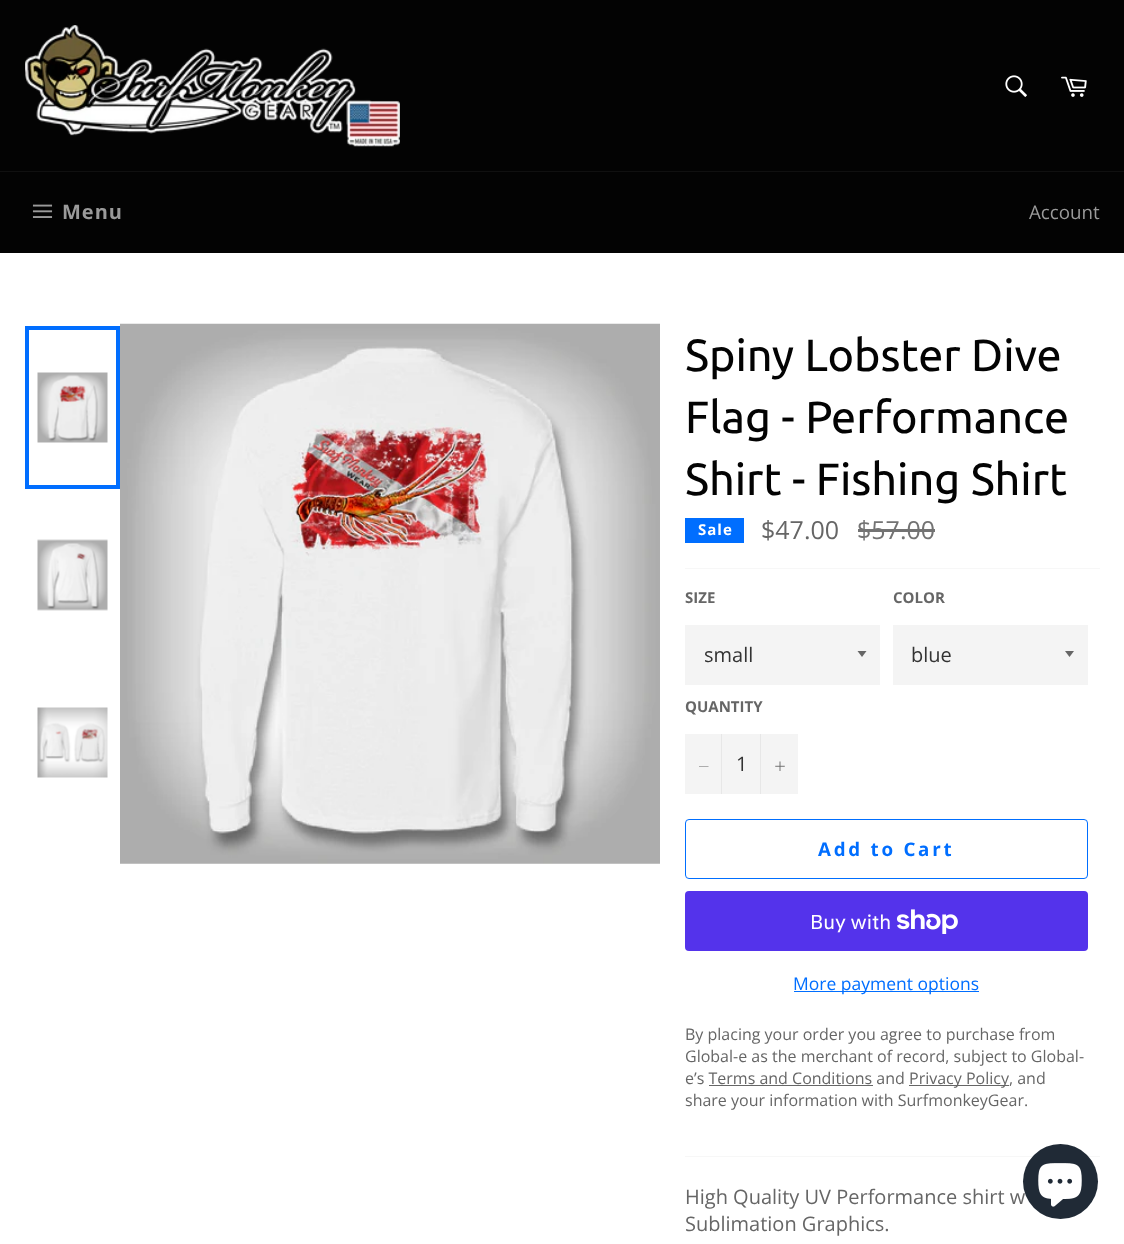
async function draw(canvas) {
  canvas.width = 1124
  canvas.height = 1244
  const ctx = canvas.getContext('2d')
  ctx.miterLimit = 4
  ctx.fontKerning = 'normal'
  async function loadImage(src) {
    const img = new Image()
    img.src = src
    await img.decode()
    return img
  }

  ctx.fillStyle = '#030303'
  ctx.fillRect(0, 0, 1124, 1244)
  ctx.drawImage(await loadImage('image0.png'), 25, 25, 375, 122)
  ctx.drawImage(await loadImage('image1.png'), 1005, 75, 22, 22)
  ctx.drawImage(await loadImage('image2.png'), 1061, 76, 26, 21)
  ctx.fillStyle = '#101010'
  ctx.fillRect(0, 171, 1124, 1)
  ctx.drawImage(await loadImage('image3.png'), 32, 204, 21, 14)
  ctx.letterSpacing = '1px'
  ctx.font = 'bold 20px Open Sans'
  ctx.fillStyle = '#9a9a9a'
  ctx.fillText('Menu', 62, 219)
  ctx.letterSpacing = '0px'
  ctx.font = '18.75px Open Sans'
  ctx.fillText('Account', 1029, 219)
  ctx.fillStyle = '#fff'
  ctx.fillRect(0, 253, 1124, 991)
  ctx.drawImage(await loadImage('image4.png'), 37, 372, 71, 71)
  ctx.strokeStyle = '#006eff'
  ctx.lineWidth = 4
  ctx.strokeRect(27, 328, 91, 159)
  ctx.drawImage(await loadImage('image5.png'), 37, 539, 71, 72)
  ctx.drawImage(await loadImage('image6.png'), 37, 707, 71, 71)
  ctx.drawImage(await loadImage('image7.png'), 120, 323, 540, 541)
  ctx.font = '45px Ubuntu'
  ctx.fillStyle = '#030303'
  ctx.fillText('Spiny Lobster Dive', 685, 371)
  ctx.fillText('Flag - Performance', 685, 433)
  ctx.fillText('Shirt - Fishing Shirt', 685, 495)
  ctx.fillStyle = '#006eff'
  ctx.fillRect(685, 518, 59, 25)
  ctx.letterSpacing = '1px'
  ctx.font = 'bold 15px Open Sans'
  ctx.fillStyle = '#fff'
  ctx.fillText('Sale', 698, 535)
  ctx.letterSpacing = '0px'
  ctx.font = '25px Open Sans'
  ctx.fillStyle = '#666'
  ctx.fillText('$47.00', 761, 539)
  ctx.fillStyle = '#737373'
  ctx.fillText('$57.00', 857, 539)
  ctx.fillRect(858, 529, 77, 3)
  ctx.fillStyle = '#f7f7f7'
  ctx.fillRect(685, 568, 415, 1)
  ctx.font = 'bold 15px Open Sans'
  ctx.fillStyle = '#666'
  ctx.fillText('SIZE', 685, 603)
  ctx.fillStyle = '#f4f4f4'
  ctx.fillRect(685, 625, 195, 60)
  ctx.fillStyle = '#666'
  ctx.beginPath()
  ctx.moveTo(857.5, 651)
  ctx.lineTo(862, 657)
  ctx.lineTo(866.5, 651)
  ctx.closePath()
  ctx.fill()
  ctx.font = '20px Open Sans'
  ctx.fillStyle = '#333'
  ctx.fillText('small', 704, 662)
  ctx.font = 'bold 15px Open Sans'
  ctx.fillStyle = '#666'
  ctx.fillText('COLOR', 893, 603)
  ctx.fillStyle = '#f4f4f4'
  ctx.fillRect(893, 625, 195, 60)
  ctx.fillStyle = '#666'
  ctx.beginPath()
  ctx.moveTo(1065, 651)
  ctx.lineTo(1069.5, 657)
  ctx.lineTo(1074, 651)
  ctx.closePath()
  ctx.fill()
  ctx.font = '20px Open Sans'
  ctx.fillStyle = '#333'
  ctx.fillText('blue', 911, 662)
  ctx.font = 'bold 15px Open Sans'
  ctx.fillStyle = '#666'
  ctx.fillText('QUANTITY', 685, 712)
  ctx.fillStyle = '#f4f4f4'
  ctx.fillRect(685, 734, 113, 60)
  ctx.fillStyle = '#e7e7e7'
  ctx.fillRect(721, 734, 1, 60)
  ctx.fillStyle = '#666'
  ctx.beginPath()
  ctx.moveTo(708.5, 766)
  ctx.lineTo(708.5, 766.5)
  ctx.lineTo(699, 766.5)
  ctx.lineTo(699, 766)
  ctx.closePath()
  ctx.fill('evenodd')
  ctx.font = '20px Open Sans'
  ctx.fillStyle = '#333'
  ctx.fillText('1', 736, 771)
  ctx.fillStyle = '#e7e7e7'
  ctx.fillRect(760, 734, 1, 60)
  ctx.drawImage(await loadImage('image8.png'), 775, 761, 10, 10)
  ctx.beginPath()
  ctx.roundRect(685.5, 819.5, 402, 59, 3.5)
  ctx.lineWidth = 1
  ctx.stroke()
  ctx.letterSpacing = '2.75px'
  ctx.font = 'bold 18.75px Open Sans'
  ctx.fillStyle = '#006eff'
  ctx.fillText('Add to Cart', 818, 856)
  ctx.fillStyle = '#5433eb'
  ctx.beginPath()
  ctx.roundRect(685, 891, 403, 60, 4)
  ctx.fill()
  ctx.letterSpacing = '0px'
  ctx.font = '20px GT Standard'
  ctx.fillStyle = '#fff'
  ctx.fillText('Buy with', 810, 929)
  ctx.drawImage(await loadImage('image9.png'), 896, 909, 62, 25)
  ctx.fillStyle = '#006eff'
  ctx.fillRect(794, 991, 185, 1)
  ctx.font = '17.5px Open Sans'
  ctx.fillText('More payment options', 793, 990)
  ctx.font = '16px Open Sans'
  ctx.fillStyle = '#666'
  ctx.fillText('By placing your order you agree to purchase from', 685, 1040)
  ctx.fillText('Global-e as the merchant of record, subject to Global-', 685, 1062)
  ctx.fillText('e’s Terms and Conditions and', 685, 1084)
  ctx.fillRect(909, 1085, 100, 1)
  ctx.fillText('Privacy Policy, and', 909, 1084)
  ctx.fillRect(709, 1085, 164, 1)
  ctx.fillText('share your information with SurfmonkeyGear.', 685, 1106)
  ctx.fillStyle = '#f7f7f7'
  ctx.fillRect(685, 1156, 415, 1)
  ctx.font = '20px Open Sans'
  ctx.fillStyle = '#666'
  ctx.fillText('High Quality UV Performance shirt w', 685, 1204)
  ctx.fillText('Sublimation Graphics.', 685, 1231)
  ctx.fillStyle = '#202a36'
  ctx.beginPath()
  ctx.arc(1060.5, 1181.5, 37.5, 0, 2 * Math.PI)
  ctx.fill()
  ctx.drawImage(await loadImage('image10.png'), 1038, 1163, 44, 44)
}

draw(document.querySelector('canvas'))
